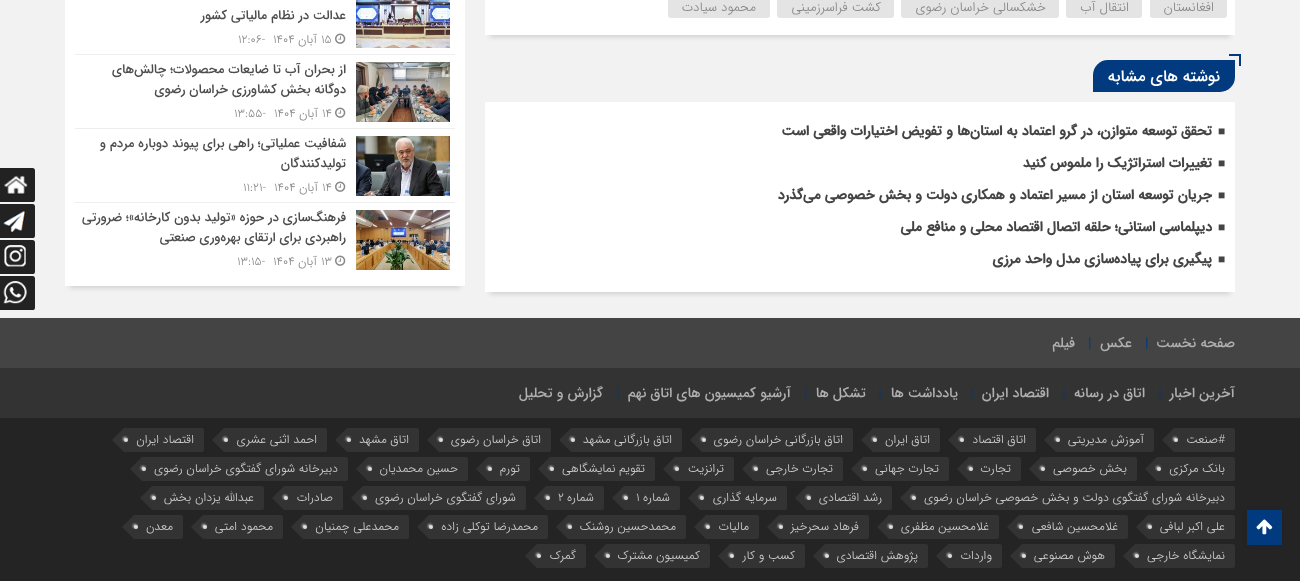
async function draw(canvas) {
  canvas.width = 1300
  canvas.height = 581
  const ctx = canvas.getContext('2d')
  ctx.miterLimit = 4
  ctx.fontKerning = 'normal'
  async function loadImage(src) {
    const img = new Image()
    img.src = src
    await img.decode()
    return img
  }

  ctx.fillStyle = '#f2f2f2'
  ctx.fillRect(0, 0, 1300, 581)
  ctx.fillStyle = '#242424'
  ctx.fillRect(0, 418, 1300, 163)
  ctx.fillStyle = '#0000004d'
  ctx.filter = 'blur(3.5px)'
  ctx.beginPath()
  ctx.rect(1250, 513, 29, 29)
  ctx.fill()
  ctx.filter = 'none'
  ctx.fillStyle = '#023a80'
  ctx.fillRect(1247, 510, 35, 35)
  ctx.drawImage(await loadImage('image0.png'), 1256, 519, 17, 16)
  ctx.fillStyle = '#cfcfcf'
  ctx.filter = 'blur(2.5px)'
  ctx.beginPath()
  ctx.rect(490, -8, 740, 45)
  ctx.fill()
  ctx.filter = 'none'
  ctx.fillStyle = '#fff'
  ctx.fillRect(485, 0, 750, 35)
  ctx.fillStyle = '#e4e4e4'
  ctx.beginPath()
  ctx.roundRect(1150, -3, 77, 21, 3)
  ctx.fill()
  ctx.direction = 'rtl'
  ctx.font = '300 13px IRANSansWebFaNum'
  ctx.fillStyle = '#888'
  ctx.fillText('افغانستان', 1214, 11)
  ctx.fillStyle = '#e4e4e4'
  ctx.beginPath()
  ctx.roundRect(1066, -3, 76, 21, 3)
  ctx.fill()
  ctx.fillStyle = '#888'
  ctx.fillText('انتقال آب', 1129, 11)
  ctx.fillStyle = '#e4e4e4'
  ctx.beginPath()
  ctx.roundRect(901, -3, 158, 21, 3)
  ctx.fill()
  ctx.fillStyle = '#888'
  ctx.fillText('خشکسالی خراسان رضوی', 1046, 11)
  ctx.fillStyle = '#e4e4e4'
  ctx.beginPath()
  ctx.roundRect(777, -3, 117, 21, 3)
  ctx.fill()
  ctx.fillStyle = '#888'
  ctx.fillText('کشت فراسرزمینی', 881, 11)
  ctx.fillStyle = '#e4e4e4'
  ctx.beginPath()
  ctx.roundRect(668, -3, 102, 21, 3)
  ctx.fill()
  ctx.fillStyle = '#888'
  ctx.fillText('محمود سیادت', 756, 11)
  ctx.fillStyle = '#023a80'
  ctx.beginPath()
  ctx.roundRect(1093, 60, 142, 32, [15, 0, 15, 0])
  ctx.fill()
  ctx.fillRect(1229, 54, 12, 2)
  ctx.fillRect(1239, 54, 2, 12)
  ctx.font = '500 16px IRANSansWebFaNum'
  ctx.fillStyle = '#fff'
  ctx.fillText('نوشته های مشابه', 1220, 81)
  ctx.fillStyle = '#cfcfcf'
  ctx.filter = 'blur(2.5px)'
  ctx.beginPath()
  ctx.rect(490, 114, 740, 180)
  ctx.fill()
  ctx.filter = 'none'
  ctx.fillStyle = '#fff'
  ctx.fillRect(485, 102, 750, 190)
  ctx.direction = 'ltr'
  ctx.font = 'bold 12px Liberation Sans'
  ctx.fillStyle = '#444'
  ctx.fillText('■', 1218, 135)
  ctx.direction = 'rtl'
  ctx.font = 'bold 14px IRANSansWebFaNum'
  ctx.fillText('تحقق توسعه متوازن، در گرو اعتماد به استان‌ها و تفویض اختیارات واقعی است', 1212, 135)
  ctx.direction = 'ltr'
  ctx.font = 'bold 12px Liberation Sans'
  ctx.fillText('■', 1218, 167)
  ctx.direction = 'rtl'
  ctx.font = 'bold 14px IRANSansWebFaNum'
  ctx.fillText('تغییرات استراتژیک را ملموس کنید', 1212, 167)
  ctx.direction = 'ltr'
  ctx.font = 'bold 12px Liberation Sans'
  ctx.fillText('■', 1218, 199)
  ctx.direction = 'rtl'
  ctx.font = 'bold 14px IRANSansWebFaNum'
  ctx.fillText('جریان توسعه استان از مسیر اعتماد و همکاری دولت و بخش خصوصی می‌گذرد', 1212, 199)
  ctx.direction = 'ltr'
  ctx.font = 'bold 12px Liberation Sans'
  ctx.fillText('■', 1218, 231)
  ctx.direction = 'rtl'
  ctx.font = 'bold 14px IRANSansWebFaNum'
  ctx.fillText('دیپلماسی استانی؛ حلقه اتصال اقتصاد محلی و منافع ملی', 1212, 231)
  ctx.direction = 'ltr'
  ctx.font = 'bold 12px Liberation Sans'
  ctx.fillText('■', 1218, 263)
  ctx.direction = 'rtl'
  ctx.font = 'bold 14px IRANSansWebFaNum'
  ctx.fillText('پیگیری برای پیاده‌سازی مدل واحد مرزی', 1212, 263)
  ctx.fillStyle = '#cfcfcf'
  ctx.filter = 'blur(2.5px)'
  ctx.beginPath()
  ctx.rect(70, -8, 390, 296)
  ctx.fill()
  ctx.filter = 'none'
  ctx.fillStyle = '#fff'
  ctx.fillRect(65, 0, 400, 286)
  ctx.fillStyle = '#eee'
  ctx.fillRect(75, 54, 380, 1)
  ctx.drawImage(await loadImage('image1.png'), 356, 0, 94, 48)
  ctx.font = '500 13px IRANSansWebFaNum'
  ctx.fillStyle = '#4d4d4d'
  ctx.fillText('عدالت در نظام مالیاتی کشور', 346, 19)
  ctx.drawImage(await loadImage('image2.png'), 335, 33, 11, 11)
  ctx.direction = 'ltr'
  ctx.font = '300 12px IRANSansWebFaNum'
  ctx.fillStyle = '#888'
  ctx.fillText('۱۵', 321, 43)
  ctx.direction = 'rtl'
  ctx.fillText('آبان', 317, 43)
  ctx.direction = 'ltr'
  ctx.fillText('۱۴۰۴', 273, 43)
  ctx.fillText('۱۲:۰۶-', 238, 43)
  ctx.fillStyle = '#eee'
  ctx.fillRect(75, 128, 380, 1)
  ctx.drawImage(await loadImage('image3.png'), 356, 62, 94, 60)
  ctx.direction = 'rtl'
  ctx.font = '500 13px IRANSansWebFaNum'
  ctx.fillStyle = '#4d4d4d'
  ctx.fillText('از بحران آب تا ضایعات محصولات؛ چالش‌های', 346, 73)
  ctx.fillText('دوگانه بخش کشاورزی خراسان رضوی', 346, 93)
  ctx.drawImage(await loadImage('image2.png'), 335, 107, 11, 11)
  ctx.direction = 'ltr'
  ctx.font = '300 12px IRANSansWebFaNum'
  ctx.fillStyle = '#888'
  ctx.fillText('۱۴', 322, 117)
  ctx.direction = 'rtl'
  ctx.fillText('آبان', 318, 117)
  ctx.direction = 'ltr'
  ctx.fillText('۱۴۰۴', 274, 117)
  ctx.fillText('۱۳:۵۵-', 234, 117)
  ctx.fillStyle = '#eee'
  ctx.fillRect(75, 202, 380, 1)
  ctx.drawImage(await loadImage('image4.png'), 356, 136, 94, 60)
  ctx.direction = 'rtl'
  ctx.font = '500 13px IRANSansWebFaNum'
  ctx.fillStyle = '#4d4d4d'
  ctx.fillText('شفافیت عملیاتی؛ راهی برای پیوند دوباره مردم و', 346, 147)
  ctx.fillText('تولیدکنندگان', 346, 167)
  ctx.drawImage(await loadImage('image2.png'), 335, 181, 11, 11)
  ctx.direction = 'ltr'
  ctx.font = '300 12px IRANSansWebFaNum'
  ctx.fillStyle = '#888'
  ctx.fillText('۱۴', 322, 191)
  ctx.direction = 'rtl'
  ctx.fillText('آبان', 318, 191)
  ctx.direction = 'ltr'
  ctx.fillText('۱۴۰۴', 274, 191)
  ctx.fillText('۱۱:۲۱-', 243, 191)
  ctx.drawImage(await loadImage('image5.png'), 356, 210, 94, 60)
  ctx.direction = 'rtl'
  ctx.font = '500 13px IRANSansWebFaNum'
  ctx.fillStyle = '#4d4d4d'
  ctx.fillText('فرهنگ‌سازی در حوزه «تولید بدون کارخانه»؛ ضرورتی', 346, 221)
  ctx.fillText('راهبردی برای ارتقای بهره‌وری صنعتی', 346, 241)
  ctx.drawImage(await loadImage('image2.png'), 335, 255, 11, 11)
  ctx.direction = 'ltr'
  ctx.font = '300 12px IRANSansWebFaNum'
  ctx.fillStyle = '#888'
  ctx.fillText('۱۳', 321, 265)
  ctx.direction = 'rtl'
  ctx.fillText('آبان', 317, 265)
  ctx.direction = 'ltr'
  ctx.fillText('۱۴۰۴', 273, 265)
  ctx.fillText('۱۳:۱۵-', 237, 265)
  ctx.drawImage(await loadImage('image6.png'), 0, 168, 35, 34)
  ctx.drawImage(await loadImage('image7.png'), 0, 204, 35, 34)
  ctx.drawImage(await loadImage('image8.png'), 0, 240, 35, 34)
  ctx.drawImage(await loadImage('image9.png'), 0, 276, 35, 34)
  ctx.fillStyle = '#444'
  ctx.fillRect(0, 318, 1300, 50)
  ctx.direction = 'rtl'
  ctx.font = '500 14px IRANSansWebFaNum'
  ctx.fillStyle = '#b0afaf'
  ctx.fillText('صفحه نخست', 1235, 347)
  ctx.direction = 'ltr'
  ctx.fillStyle = '#023a80'
  ctx.fillText('|', 1145, 347)
  ctx.direction = 'rtl'
  ctx.fillStyle = '#b0afaf'
  ctx.fillText('عکس', 1132, 347)
  ctx.direction = 'ltr'
  ctx.fillStyle = '#023a80'
  ctx.fillText('|', 1088, 347)
  ctx.direction = 'rtl'
  ctx.fillStyle = '#b0afaf'
  ctx.fillText('فیلم', 1075, 347)
  ctx.fillStyle = '#333'
  ctx.fillRect(0, 368, 1300, 50)
  ctx.fillStyle = '#b0afaf'
  ctx.fillText('آخرین اخبار', 1235, 397)
  ctx.direction = 'ltr'
  ctx.fillStyle = '#023a80'
  ctx.fillText('|', 1158, 397)
  ctx.direction = 'rtl'
  ctx.fillStyle = '#b0afaf'
  ctx.fillText('اتاق در رسانه', 1145, 397)
  ctx.direction = 'ltr'
  ctx.fillStyle = '#023a80'
  ctx.fillText('|', 1062, 397)
  ctx.direction = 'rtl'
  ctx.fillStyle = '#b0afaf'
  ctx.fillText('اقتصاد ایران', 1049, 397)
  ctx.direction = 'ltr'
  ctx.fillStyle = '#023a80'
  ctx.fillText('|', 970, 397)
  ctx.direction = 'rtl'
  ctx.fillStyle = '#b0afaf'
  ctx.fillText('یادداشت ها', 958, 397)
  ctx.direction = 'ltr'
  ctx.fillStyle = '#023a80'
  ctx.fillText('|', 878, 397)
  ctx.direction = 'rtl'
  ctx.fillStyle = '#b0afaf'
  ctx.fillText('تشکل ها', 866, 397)
  ctx.direction = 'ltr'
  ctx.fillStyle = '#023a80'
  ctx.fillText('|', 804, 397)
  ctx.direction = 'rtl'
  ctx.fillStyle = '#b0afaf'
  ctx.fillText('آرشیو کمیسیون های اتاق نهم', 791, 397)
  ctx.direction = 'ltr'
  ctx.fillStyle = '#023a80'
  ctx.fillText('|', 616, 397)
  ctx.direction = 'rtl'
  ctx.fillStyle = '#b0afaf'
  ctx.fillText('گزارش و تحلیل', 603, 397)
  ctx.fillStyle = '#333'
  ctx.beginPath()
  ctx.roundRect(1174, 428, 61, 24, [0, 2, 2, 0])
  ctx.fill()
  ctx.font = '300 12px IRANSansWebFaNum'
  ctx.fillStyle = '#ccc'
  ctx.fillText('#صنعت', 1225, 443)
  ctx.fillStyle = '#333'
  ctx.beginPath()
  ctx.moveTo(1174, 428)
  ctx.lineTo(1174, 452)
  ctx.lineTo(1162, 440)
  ctx.closePath()
  ctx.fill()
  ctx.fillStyle = '#ccc'
  ctx.filter = 'blur(1px)'
  ctx.beginPath()
  ctx.roundRect(1173, 437, 4, 4, 2)
  ctx.fill()
  ctx.filter = 'none'
  ctx.fillStyle = '#ddd'
  ctx.beginPath()
  ctx.arc(1176, 440, 2, 0, 2 * Math.PI)
  ctx.fill()
  ctx.fillStyle = '#333'
  ctx.beginPath()
  ctx.roundRect(1056, 428, 98, 24, [0, 2, 2, 0])
  ctx.fill()
  ctx.fillStyle = '#ccc'
  ctx.fillText('آموزش مدیریتی', 1144, 443)
  ctx.fillStyle = '#333'
  ctx.beginPath()
  ctx.moveTo(1056, 428)
  ctx.lineTo(1056, 452)
  ctx.lineTo(1044, 440)
  ctx.closePath()
  ctx.fill()
  ctx.fillStyle = '#ccc'
  ctx.filter = 'blur(1px)'
  ctx.beginPath()
  ctx.roundRect(1055, 437, 4, 4, 2)
  ctx.fill()
  ctx.filter = 'none'
  ctx.fillStyle = '#ddd'
  ctx.beginPath()
  ctx.arc(1058, 440, 2, 0, 2 * Math.PI)
  ctx.fill()
  ctx.fillStyle = '#333'
  ctx.beginPath()
  ctx.roundRect(960, 428, 76, 24, [0, 2, 2, 0])
  ctx.fill()
  ctx.fillStyle = '#ccc'
  ctx.fillText('اتاق اقتصاد', 1026, 443)
  ctx.fillStyle = '#333'
  ctx.beginPath()
  ctx.moveTo(960, 428)
  ctx.lineTo(960, 452)
  ctx.lineTo(948, 440)
  ctx.closePath()
  ctx.fill()
  ctx.fillStyle = '#ccc'
  ctx.filter = 'blur(1px)'
  ctx.beginPath()
  ctx.roundRect(959, 437, 4, 4, 2)
  ctx.fill()
  ctx.filter = 'none'
  ctx.fillStyle = '#ddd'
  ctx.beginPath()
  ctx.arc(962, 440, 2, 0, 2 * Math.PI)
  ctx.fill()
  ctx.fillStyle = '#333'
  ctx.beginPath()
  ctx.roundRect(873, 428, 67, 24, [0, 2, 2, 0])
  ctx.fill()
  ctx.fillStyle = '#ccc'
  ctx.fillText('اتاق ایران', 930, 443)
  ctx.fillStyle = '#333'
  ctx.beginPath()
  ctx.moveTo(873, 428)
  ctx.lineTo(873, 452)
  ctx.lineTo(861, 440)
  ctx.closePath()
  ctx.fill()
  ctx.fillStyle = '#ccc'
  ctx.filter = 'blur(1px)'
  ctx.beginPath()
  ctx.roundRect(872, 437, 4, 4, 2)
  ctx.fill()
  ctx.filter = 'none'
  ctx.fillStyle = '#ddd'
  ctx.beginPath()
  ctx.arc(875, 440, 2, 0, 2 * Math.PI)
  ctx.fill()
  ctx.fillStyle = '#333'
  ctx.beginPath()
  ctx.roundRect(702, 428, 151, 24, [0, 2, 2, 0])
  ctx.fill()
  ctx.fillStyle = '#ccc'
  ctx.fillText('اتاق بازرگانی خراسان رضوی', 843, 443)
  ctx.fillStyle = '#333'
  ctx.beginPath()
  ctx.moveTo(702, 428)
  ctx.lineTo(702, 452)
  ctx.lineTo(690, 440)
  ctx.closePath()
  ctx.fill()
  ctx.fillStyle = '#ccc'
  ctx.filter = 'blur(1px)'
  ctx.beginPath()
  ctx.roundRect(701, 437, 4, 4, 2)
  ctx.fill()
  ctx.filter = 'none'
  ctx.fillStyle = '#ddd'
  ctx.beginPath()
  ctx.arc(704, 440, 2, 0, 2 * Math.PI)
  ctx.fill()
  ctx.fillStyle = '#333'
  ctx.beginPath()
  ctx.roundRect(571, 428, 111, 24, [0, 2, 2, 0])
  ctx.fill()
  ctx.fillStyle = '#ccc'
  ctx.fillText('اتاق بازرگانی مشهد', 672, 443)
  ctx.fillStyle = '#333'
  ctx.beginPath()
  ctx.moveTo(571, 428)
  ctx.lineTo(571, 452)
  ctx.lineTo(559, 440)
  ctx.closePath()
  ctx.fill()
  ctx.fillStyle = '#ccc'
  ctx.filter = 'blur(1px)'
  ctx.beginPath()
  ctx.roundRect(570, 437, 4, 4, 2)
  ctx.fill()
  ctx.filter = 'none'
  ctx.fillStyle = '#ddd'
  ctx.beginPath()
  ctx.arc(573, 440, 2, 0, 2 * Math.PI)
  ctx.fill()
  ctx.fillStyle = '#333'
  ctx.beginPath()
  ctx.roundRect(439, 428, 112, 24, [0, 2, 2, 0])
  ctx.fill()
  ctx.fillStyle = '#ccc'
  ctx.fillText('اتاق خراسان رضوی', 541, 443)
  ctx.fillStyle = '#333'
  ctx.beginPath()
  ctx.moveTo(439, 428)
  ctx.lineTo(439, 452)
  ctx.lineTo(427, 440)
  ctx.closePath()
  ctx.fill()
  ctx.fillStyle = '#ccc'
  ctx.filter = 'blur(1px)'
  ctx.beginPath()
  ctx.roundRect(438, 437, 4, 4, 2)
  ctx.fill()
  ctx.filter = 'none'
  ctx.fillStyle = '#ddd'
  ctx.beginPath()
  ctx.arc(441, 440, 2, 0, 2 * Math.PI)
  ctx.fill()
  ctx.fillStyle = '#333'
  ctx.beginPath()
  ctx.roundRect(347, 428, 72, 24, [0, 2, 2, 0])
  ctx.fill()
  ctx.fillStyle = '#ccc'
  ctx.fillText('اتاق مشهد', 409, 443)
  ctx.fillStyle = '#333'
  ctx.beginPath()
  ctx.moveTo(347, 428)
  ctx.lineTo(347, 452)
  ctx.lineTo(335, 440)
  ctx.closePath()
  ctx.fill()
  ctx.fillStyle = '#ccc'
  ctx.filter = 'blur(1px)'
  ctx.beginPath()
  ctx.roundRect(346, 437, 4, 4, 2)
  ctx.fill()
  ctx.filter = 'none'
  ctx.fillStyle = '#ddd'
  ctx.beginPath()
  ctx.arc(349, 440, 2, 0, 2 * Math.PI)
  ctx.fill()
  ctx.fillStyle = '#333'
  ctx.beginPath()
  ctx.roundRect(224, 428, 103, 24, [0, 2, 2, 0])
  ctx.fill()
  ctx.fillStyle = '#ccc'
  ctx.fillText('احمد اثنی عشری', 317, 443)
  ctx.fillStyle = '#333'
  ctx.beginPath()
  ctx.moveTo(224, 428)
  ctx.lineTo(224, 452)
  ctx.lineTo(212, 440)
  ctx.closePath()
  ctx.fill()
  ctx.fillStyle = '#ccc'
  ctx.filter = 'blur(1px)'
  ctx.beginPath()
  ctx.roundRect(223, 437, 4, 4, 2)
  ctx.fill()
  ctx.filter = 'none'
  ctx.fillStyle = '#ddd'
  ctx.beginPath()
  ctx.arc(226, 440, 2, 0, 2 * Math.PI)
  ctx.fill()
  ctx.fillStyle = '#333'
  ctx.beginPath()
  ctx.roundRect(124, 428, 80, 24, [0, 2, 2, 0])
  ctx.fill()
  ctx.fillStyle = '#ccc'
  ctx.fillText('اقتصاد ایران', 194, 443)
  ctx.fillStyle = '#333'
  ctx.beginPath()
  ctx.moveTo(124, 428)
  ctx.lineTo(124, 452)
  ctx.lineTo(112, 440)
  ctx.closePath()
  ctx.fill()
  ctx.fillStyle = '#ccc'
  ctx.filter = 'blur(1px)'
  ctx.beginPath()
  ctx.roundRect(123, 437, 4, 4, 2)
  ctx.fill()
  ctx.filter = 'none'
  ctx.fillStyle = '#ddd'
  ctx.beginPath()
  ctx.arc(126, 440, 2, 0, 2 * Math.PI)
  ctx.fill()
  ctx.fillStyle = '#333'
  ctx.beginPath()
  ctx.roundRect(1157, 457, 78, 24, [0, 2, 2, 0])
  ctx.fill()
  ctx.fillStyle = '#ccc'
  ctx.fillText('بانک مرکزی', 1225, 472)
  ctx.fillStyle = '#333'
  ctx.beginPath()
  ctx.moveTo(1157, 457)
  ctx.lineTo(1157, 481)
  ctx.lineTo(1145, 469)
  ctx.closePath()
  ctx.fill()
  ctx.fillStyle = '#ccc'
  ctx.filter = 'blur(1px)'
  ctx.beginPath()
  ctx.roundRect(1156, 466, 4, 4, 2)
  ctx.fill()
  ctx.filter = 'none'
  ctx.fillStyle = '#ddd'
  ctx.beginPath()
  ctx.arc(1159, 469, 2, 0, 2 * Math.PI)
  ctx.fill()
  ctx.fillStyle = '#333'
  ctx.beginPath()
  ctx.roundRect(1041, 457, 96, 24, [0, 2, 2, 0])
  ctx.fill()
  ctx.fillStyle = '#ccc'
  ctx.fillText('بخش خصوصی', 1127, 472)
  ctx.fillStyle = '#333'
  ctx.beginPath()
  ctx.moveTo(1041, 457)
  ctx.lineTo(1041, 481)
  ctx.lineTo(1029, 469)
  ctx.closePath()
  ctx.fill()
  ctx.fillStyle = '#ccc'
  ctx.filter = 'blur(1px)'
  ctx.beginPath()
  ctx.roundRect(1040, 466, 4, 4, 2)
  ctx.fill()
  ctx.filter = 'none'
  ctx.fillStyle = '#ddd'
  ctx.beginPath()
  ctx.arc(1043, 469, 2, 0, 2 * Math.PI)
  ctx.fill()
  ctx.fillStyle = '#333'
  ctx.beginPath()
  ctx.roundRect(969, 457, 52, 24, [0, 2, 2, 0])
  ctx.fill()
  ctx.fillStyle = '#ccc'
  ctx.fillText('تجارت', 1011, 472)
  ctx.fillStyle = '#333'
  ctx.beginPath()
  ctx.moveTo(969, 457)
  ctx.lineTo(969, 481)
  ctx.lineTo(957, 469)
  ctx.closePath()
  ctx.fill()
  ctx.fillStyle = '#ccc'
  ctx.filter = 'blur(1px)'
  ctx.beginPath()
  ctx.roundRect(968, 466, 4, 4, 2)
  ctx.fill()
  ctx.filter = 'none'
  ctx.fillStyle = '#ddd'
  ctx.beginPath()
  ctx.arc(971, 469, 2, 0, 2 * Math.PI)
  ctx.fill()
  ctx.fillStyle = '#333'
  ctx.beginPath()
  ctx.roundRect(863, 457, 86, 24, [0, 2, 2, 0])
  ctx.fill()
  ctx.fillStyle = '#ccc'
  ctx.fillText('تجارت جهانی', 939, 472)
  ctx.fillStyle = '#333'
  ctx.beginPath()
  ctx.moveTo(863, 457)
  ctx.lineTo(863, 481)
  ctx.lineTo(851, 469)
  ctx.closePath()
  ctx.fill()
  ctx.fillStyle = '#ccc'
  ctx.filter = 'blur(1px)'
  ctx.beginPath()
  ctx.roundRect(862, 466, 4, 4, 2)
  ctx.fill()
  ctx.filter = 'none'
  ctx.fillStyle = '#ddd'
  ctx.beginPath()
  ctx.arc(865, 469, 2, 0, 2 * Math.PI)
  ctx.fill()
  ctx.fillStyle = '#333'
  ctx.beginPath()
  ctx.roundRect(754, 457, 89, 24, [0, 2, 2, 0])
  ctx.fill()
  ctx.fillStyle = '#ccc'
  ctx.fillText('تجارت خارجی', 833, 472)
  ctx.fillStyle = '#333'
  ctx.beginPath()
  ctx.moveTo(754, 457)
  ctx.lineTo(754, 481)
  ctx.lineTo(742, 469)
  ctx.closePath()
  ctx.fill()
  ctx.fillStyle = '#ccc'
  ctx.filter = 'blur(1px)'
  ctx.beginPath()
  ctx.roundRect(753, 466, 4, 4, 2)
  ctx.fill()
  ctx.filter = 'none'
  ctx.fillStyle = '#ddd'
  ctx.beginPath()
  ctx.arc(756, 469, 2, 0, 2 * Math.PI)
  ctx.fill()
  ctx.fillStyle = '#333'
  ctx.beginPath()
  ctx.roundRect(675, 457, 59, 24, [0, 2, 2, 0])
  ctx.fill()
  ctx.fillStyle = '#ccc'
  ctx.fillText('ترانزیت', 724, 472)
  ctx.fillStyle = '#333'
  ctx.beginPath()
  ctx.moveTo(675, 457)
  ctx.lineTo(675, 481)
  ctx.lineTo(663, 469)
  ctx.closePath()
  ctx.fill()
  ctx.fillStyle = '#ccc'
  ctx.filter = 'blur(1px)'
  ctx.beginPath()
  ctx.roundRect(674, 466, 4, 4, 2)
  ctx.fill()
  ctx.filter = 'none'
  ctx.fillStyle = '#ddd'
  ctx.beginPath()
  ctx.arc(677, 469, 2, 0, 2 * Math.PI)
  ctx.fill()
  ctx.fillStyle = '#333'
  ctx.beginPath()
  ctx.roundRect(550, 457, 105, 24, [0, 2, 2, 0])
  ctx.fill()
  ctx.fillStyle = '#ccc'
  ctx.fillText('تقویم نمایشگاهی', 645, 472)
  ctx.fillStyle = '#333'
  ctx.beginPath()
  ctx.moveTo(550, 457)
  ctx.lineTo(550, 481)
  ctx.lineTo(538, 469)
  ctx.closePath()
  ctx.fill()
  ctx.fillStyle = '#ccc'
  ctx.filter = 'blur(1px)'
  ctx.beginPath()
  ctx.roundRect(549, 466, 4, 4, 2)
  ctx.fill()
  ctx.filter = 'none'
  ctx.fillStyle = '#ddd'
  ctx.beginPath()
  ctx.arc(552, 469, 2, 0, 2 * Math.PI)
  ctx.fill()
  ctx.fillStyle = '#333'
  ctx.beginPath()
  ctx.roundRect(488, 457, 42, 24, [0, 2, 2, 0])
  ctx.fill()
  ctx.fillStyle = '#ccc'
  ctx.fillText('تورم', 520, 472)
  ctx.fillStyle = '#333'
  ctx.beginPath()
  ctx.moveTo(488, 457)
  ctx.lineTo(488, 481)
  ctx.lineTo(476, 469)
  ctx.closePath()
  ctx.fill()
  ctx.fillStyle = '#ccc'
  ctx.filter = 'blur(1px)'
  ctx.beginPath()
  ctx.roundRect(487, 466, 4, 4, 2)
  ctx.fill()
  ctx.filter = 'none'
  ctx.fillStyle = '#ddd'
  ctx.beginPath()
  ctx.arc(490, 469, 2, 0, 2 * Math.PI)
  ctx.fill()
  ctx.fillStyle = '#333'
  ctx.beginPath()
  ctx.roundRect(368, 457, 100, 24, [0, 2, 2, 0])
  ctx.fill()
  ctx.fillStyle = '#ccc'
  ctx.fillText('حسین محمدیان', 458, 472)
  ctx.fillStyle = '#333'
  ctx.beginPath()
  ctx.moveTo(368, 457)
  ctx.lineTo(368, 481)
  ctx.lineTo(356, 469)
  ctx.closePath()
  ctx.fill()
  ctx.fillStyle = '#ccc'
  ctx.filter = 'blur(1px)'
  ctx.beginPath()
  ctx.roundRect(367, 466, 4, 4, 2)
  ctx.fill()
  ctx.filter = 'none'
  ctx.fillStyle = '#ddd'
  ctx.beginPath()
  ctx.arc(370, 469, 2, 0, 2 * Math.PI)
  ctx.fill()
  ctx.fillStyle = '#333'
  ctx.beginPath()
  ctx.roundRect(142, 457, 206, 24, [0, 2, 2, 0])
  ctx.fill()
  ctx.fillStyle = '#ccc'
  ctx.fillText('دبیرخانه شورای گفتگوی خراسان رضوی', 338, 472)
  ctx.fillStyle = '#333'
  ctx.beginPath()
  ctx.moveTo(142, 457)
  ctx.lineTo(142, 481)
  ctx.lineTo(130, 469)
  ctx.closePath()
  ctx.fill()
  ctx.fillStyle = '#ccc'
  ctx.filter = 'blur(1px)'
  ctx.beginPath()
  ctx.roundRect(141, 466, 4, 4, 2)
  ctx.fill()
  ctx.filter = 'none'
  ctx.fillStyle = '#ddd'
  ctx.beginPath()
  ctx.arc(144, 469, 2, 0, 2 * Math.PI)
  ctx.fill()
  ctx.fillStyle = '#333'
  ctx.beginPath()
  ctx.roundRect(912, 486, 323, 24, [0, 2, 2, 0])
  ctx.fill()
  ctx.fillStyle = '#ccc'
  ctx.fillText('دبیرخانه شورای گفتگوی دولت و بخش خصوصی خراسان رضوی', 1225, 501)
  ctx.fillStyle = '#333'
  ctx.beginPath()
  ctx.moveTo(912, 486)
  ctx.lineTo(912, 510)
  ctx.lineTo(900, 498)
  ctx.closePath()
  ctx.fill()
  ctx.fillStyle = '#ccc'
  ctx.filter = 'blur(1px)'
  ctx.beginPath()
  ctx.roundRect(911, 495, 4, 4, 2)
  ctx.fill()
  ctx.filter = 'none'
  ctx.fillStyle = '#ddd'
  ctx.beginPath()
  ctx.arc(914, 498, 2, 0, 2 * Math.PI)
  ctx.fill()
  ctx.fillStyle = '#333'
  ctx.beginPath()
  ctx.roundRect(807, 486, 85, 24, [0, 2, 2, 0])
  ctx.fill()
  ctx.fillStyle = '#ccc'
  ctx.fillText('رشد اقتصادی', 882, 501)
  ctx.fillStyle = '#333'
  ctx.beginPath()
  ctx.moveTo(807, 486)
  ctx.lineTo(807, 510)
  ctx.lineTo(795, 498)
  ctx.closePath()
  ctx.fill()
  ctx.fillStyle = '#ccc'
  ctx.filter = 'blur(1px)'
  ctx.beginPath()
  ctx.roundRect(806, 495, 4, 4, 2)
  ctx.fill()
  ctx.filter = 'none'
  ctx.fillStyle = '#ddd'
  ctx.beginPath()
  ctx.arc(809, 498, 2, 0, 2 * Math.PI)
  ctx.fill()
  ctx.fillStyle = '#333'
  ctx.beginPath()
  ctx.roundRect(700, 486, 87, 24, [0, 2, 2, 0])
  ctx.fill()
  ctx.fillStyle = '#ccc'
  ctx.fillText('سرمایه گذاری', 777, 501)
  ctx.fillStyle = '#333'
  ctx.beginPath()
  ctx.moveTo(700, 486)
  ctx.lineTo(700, 510)
  ctx.lineTo(688, 498)
  ctx.closePath()
  ctx.fill()
  ctx.fillStyle = '#ccc'
  ctx.filter = 'blur(1px)'
  ctx.beginPath()
  ctx.roundRect(699, 495, 4, 4, 2)
  ctx.fill()
  ctx.filter = 'none'
  ctx.fillStyle = '#ddd'
  ctx.beginPath()
  ctx.arc(702, 498, 2, 0, 2 * Math.PI)
  ctx.fill()
  ctx.fillStyle = '#333'
  ctx.beginPath()
  ctx.roundRect(624, 486, 56, 24, [0, 2, 2, 0])
  ctx.fill()
  ctx.fillStyle = '#ccc'
  ctx.fillText('شماره', 670, 501)
  ctx.direction = 'ltr'
  ctx.fillText('1', 636, 501)
  ctx.fillStyle = '#333'
  ctx.beginPath()
  ctx.moveTo(624, 486)
  ctx.lineTo(624, 510)
  ctx.lineTo(612, 498)
  ctx.closePath()
  ctx.fill()
  ctx.fillStyle = '#ccc'
  ctx.filter = 'blur(1px)'
  ctx.beginPath()
  ctx.roundRect(623, 495, 4, 4, 2)
  ctx.fill()
  ctx.filter = 'none'
  ctx.fillStyle = '#ddd'
  ctx.beginPath()
  ctx.arc(626, 498, 2, 0, 2 * Math.PI)
  ctx.fill()
  ctx.fillStyle = '#333'
  ctx.beginPath()
  ctx.roundRect(546, 486, 58, 24, [0, 2, 2, 0])
  ctx.fill()
  ctx.direction = 'rtl'
  ctx.fillStyle = '#ccc'
  ctx.fillText('شماره', 594, 501)
  ctx.direction = 'ltr'
  ctx.fillText('2', 558, 501)
  ctx.fillStyle = '#333'
  ctx.beginPath()
  ctx.moveTo(546, 486)
  ctx.lineTo(546, 510)
  ctx.lineTo(534, 498)
  ctx.closePath()
  ctx.fill()
  ctx.fillStyle = '#ccc'
  ctx.filter = 'blur(1px)'
  ctx.beginPath()
  ctx.roundRect(545, 495, 4, 4, 2)
  ctx.fill()
  ctx.filter = 'none'
  ctx.fillStyle = '#ddd'
  ctx.beginPath()
  ctx.arc(548, 498, 2, 0, 2 * Math.PI)
  ctx.fill()
  ctx.fillStyle = '#333'
  ctx.beginPath()
  ctx.roundRect(363, 486, 163, 24, [0, 2, 2, 0])
  ctx.fill()
  ctx.direction = 'rtl'
  ctx.fillStyle = '#ccc'
  ctx.fillText('شورای گفتگوی خراسان رضوی', 516, 501)
  ctx.fillStyle = '#333'
  ctx.beginPath()
  ctx.moveTo(363, 486)
  ctx.lineTo(363, 510)
  ctx.lineTo(351, 498)
  ctx.closePath()
  ctx.fill()
  ctx.fillStyle = '#ccc'
  ctx.filter = 'blur(1px)'
  ctx.beginPath()
  ctx.roundRect(362, 495, 4, 4, 2)
  ctx.fill()
  ctx.filter = 'none'
  ctx.fillStyle = '#ddd'
  ctx.beginPath()
  ctx.arc(365, 498, 2, 0, 2 * Math.PI)
  ctx.fill()
  ctx.fillStyle = '#333'
  ctx.beginPath()
  ctx.roundRect(284, 486, 59, 24, [0, 2, 2, 0])
  ctx.fill()
  ctx.fillStyle = '#ccc'
  ctx.fillText('صادرات', 333, 501)
  ctx.fillStyle = '#333'
  ctx.beginPath()
  ctx.moveTo(284, 486)
  ctx.lineTo(284, 510)
  ctx.lineTo(272, 498)
  ctx.closePath()
  ctx.fill()
  ctx.fillStyle = '#ccc'
  ctx.filter = 'blur(1px)'
  ctx.beginPath()
  ctx.roundRect(283, 495, 4, 4, 2)
  ctx.fill()
  ctx.filter = 'none'
  ctx.fillStyle = '#ddd'
  ctx.beginPath()
  ctx.arc(286, 498, 2, 0, 2 * Math.PI)
  ctx.fill()
  ctx.fillStyle = '#333'
  ctx.beginPath()
  ctx.roundRect(152, 486, 112, 24, [0, 2, 2, 0])
  ctx.fill()
  ctx.fillStyle = '#ccc'
  ctx.fillText('عبدالله یزدان بخش', 254, 501)
  ctx.fillStyle = '#333'
  ctx.beginPath()
  ctx.moveTo(152, 486)
  ctx.lineTo(152, 510)
  ctx.lineTo(140, 498)
  ctx.closePath()
  ctx.fill()
  ctx.fillStyle = '#ccc'
  ctx.filter = 'blur(1px)'
  ctx.beginPath()
  ctx.roundRect(151, 495, 4, 4, 2)
  ctx.fill()
  ctx.filter = 'none'
  ctx.fillStyle = '#ddd'
  ctx.beginPath()
  ctx.arc(154, 498, 2, 0, 2 * Math.PI)
  ctx.fill()
  ctx.fillStyle = '#333'
  ctx.beginPath()
  ctx.roundRect(1148, 515, 87, 24, [0, 2, 2, 0])
  ctx.fill()
  ctx.fillStyle = '#ccc'
  ctx.fillText('علی اکبر لبافی', 1225, 530)
  ctx.fillStyle = '#333'
  ctx.beginPath()
  ctx.moveTo(1148, 515)
  ctx.lineTo(1148, 539)
  ctx.lineTo(1136, 527)
  ctx.closePath()
  ctx.fill()
  ctx.fillStyle = '#ccc'
  ctx.filter = 'blur(1px)'
  ctx.beginPath()
  ctx.roundRect(1147, 524, 4, 4, 2)
  ctx.fill()
  ctx.filter = 'none'
  ctx.fillStyle = '#ddd'
  ctx.beginPath()
  ctx.arc(1150, 527, 2, 0, 2 * Math.PI)
  ctx.fill()
  ctx.fillStyle = '#333'
  ctx.beginPath()
  ctx.roundRect(1019, 515, 109, 24, [0, 2, 2, 0])
  ctx.fill()
  ctx.fillStyle = '#ccc'
  ctx.fillText('غلامحسین شافعی', 1118, 530)
  ctx.fillStyle = '#333'
  ctx.beginPath()
  ctx.moveTo(1019, 515)
  ctx.lineTo(1019, 539)
  ctx.lineTo(1007, 527)
  ctx.closePath()
  ctx.fill()
  ctx.fillStyle = '#ccc'
  ctx.filter = 'blur(1px)'
  ctx.beginPath()
  ctx.roundRect(1018, 524, 4, 4, 2)
  ctx.fill()
  ctx.filter = 'none'
  ctx.fillStyle = '#ddd'
  ctx.beginPath()
  ctx.arc(1021, 527, 2, 0, 2 * Math.PI)
  ctx.fill()
  ctx.fillStyle = '#333'
  ctx.beginPath()
  ctx.roundRect(889, 515, 110, 24, [0, 2, 2, 0])
  ctx.fill()
  ctx.fillStyle = '#ccc'
  ctx.fillText('غلامحسین مظفری', 989, 530)
  ctx.fillStyle = '#333'
  ctx.beginPath()
  ctx.moveTo(889, 515)
  ctx.lineTo(889, 539)
  ctx.lineTo(877, 527)
  ctx.closePath()
  ctx.fill()
  ctx.fillStyle = '#ccc'
  ctx.filter = 'blur(1px)'
  ctx.beginPath()
  ctx.roundRect(888, 524, 4, 4, 2)
  ctx.fill()
  ctx.filter = 'none'
  ctx.fillStyle = '#ddd'
  ctx.beginPath()
  ctx.arc(891, 527, 2, 0, 2 * Math.PI)
  ctx.fill()
  ctx.fillStyle = '#333'
  ctx.beginPath()
  ctx.roundRect(779, 515, 90, 24, [0, 2, 2, 0])
  ctx.fill()
  ctx.fillStyle = '#ccc'
  ctx.fillText('فرهاد سحرخیز', 859, 530)
  ctx.fillStyle = '#333'
  ctx.beginPath()
  ctx.moveTo(779, 515)
  ctx.lineTo(779, 539)
  ctx.lineTo(767, 527)
  ctx.closePath()
  ctx.fill()
  ctx.fillStyle = '#ccc'
  ctx.filter = 'blur(1px)'
  ctx.beginPath()
  ctx.roundRect(778, 524, 4, 4, 2)
  ctx.fill()
  ctx.filter = 'none'
  ctx.fillStyle = '#ddd'
  ctx.beginPath()
  ctx.arc(781, 527, 2, 0, 2 * Math.PI)
  ctx.fill()
  ctx.fillStyle = '#333'
  ctx.beginPath()
  ctx.roundRect(706, 515, 53, 24, [0, 2, 2, 0])
  ctx.fill()
  ctx.fillStyle = '#ccc'
  ctx.fillText('مالیات', 749, 530)
  ctx.fillStyle = '#333'
  ctx.beginPath()
  ctx.moveTo(706, 515)
  ctx.lineTo(706, 539)
  ctx.lineTo(694, 527)
  ctx.closePath()
  ctx.fill()
  ctx.fillStyle = '#ccc'
  ctx.filter = 'blur(1px)'
  ctx.beginPath()
  ctx.roundRect(705, 524, 4, 4, 2)
  ctx.fill()
  ctx.filter = 'none'
  ctx.fillStyle = '#ddd'
  ctx.beginPath()
  ctx.arc(708, 527, 2, 0, 2 * Math.PI)
  ctx.fill()
  ctx.fillStyle = '#333'
  ctx.beginPath()
  ctx.roundRect(568, 515, 118, 24, [0, 2, 2, 0])
  ctx.fill()
  ctx.fillStyle = '#ccc'
  ctx.fillText('محمدحسین روشنک', 676, 530)
  ctx.fillStyle = '#333'
  ctx.beginPath()
  ctx.moveTo(568, 515)
  ctx.lineTo(568, 539)
  ctx.lineTo(556, 527)
  ctx.closePath()
  ctx.fill()
  ctx.fillStyle = '#ccc'
  ctx.filter = 'blur(1px)'
  ctx.beginPath()
  ctx.roundRect(567, 524, 4, 4, 2)
  ctx.fill()
  ctx.filter = 'none'
  ctx.fillStyle = '#ddd'
  ctx.beginPath()
  ctx.arc(570, 527, 2, 0, 2 * Math.PI)
  ctx.fill()
  ctx.fillStyle = '#333'
  ctx.beginPath()
  ctx.roundRect(429, 515, 119, 24, [0, 2, 2, 0])
  ctx.fill()
  ctx.fillStyle = '#ccc'
  ctx.fillText('محمدرضا توکلی زاده', 538, 530)
  ctx.fillStyle = '#333'
  ctx.beginPath()
  ctx.moveTo(429, 515)
  ctx.lineTo(429, 539)
  ctx.lineTo(417, 527)
  ctx.closePath()
  ctx.fill()
  ctx.fillStyle = '#ccc'
  ctx.filter = 'blur(1px)'
  ctx.beginPath()
  ctx.roundRect(428, 524, 4, 4, 2)
  ctx.fill()
  ctx.filter = 'none'
  ctx.fillStyle = '#ddd'
  ctx.beginPath()
  ctx.arc(431, 527, 2, 0, 2 * Math.PI)
  ctx.fill()
  ctx.fillStyle = '#333'
  ctx.beginPath()
  ctx.roundRect(303, 515, 106, 24, [0, 2, 2, 0])
  ctx.fill()
  ctx.fillStyle = '#ccc'
  ctx.fillText('محمدعلی چمنیان', 399, 530)
  ctx.fillStyle = '#333'
  ctx.beginPath()
  ctx.moveTo(303, 515)
  ctx.lineTo(303, 539)
  ctx.lineTo(291, 527)
  ctx.closePath()
  ctx.fill()
  ctx.fillStyle = '#ccc'
  ctx.filter = 'blur(1px)'
  ctx.beginPath()
  ctx.roundRect(302, 524, 4, 4, 2)
  ctx.fill()
  ctx.filter = 'none'
  ctx.fillStyle = '#ddd'
  ctx.beginPath()
  ctx.arc(305, 527, 2, 0, 2 * Math.PI)
  ctx.fill()
  ctx.fillStyle = '#333'
  ctx.beginPath()
  ctx.roundRect(203, 515, 80, 24, [0, 2, 2, 0])
  ctx.fill()
  ctx.fillStyle = '#ccc'
  ctx.fillText('محمود امتی', 273, 530)
  ctx.fillStyle = '#333'
  ctx.beginPath()
  ctx.moveTo(203, 515)
  ctx.lineTo(203, 539)
  ctx.lineTo(191, 527)
  ctx.closePath()
  ctx.fill()
  ctx.fillStyle = '#ccc'
  ctx.filter = 'blur(1px)'
  ctx.beginPath()
  ctx.roundRect(202, 524, 4, 4, 2)
  ctx.fill()
  ctx.filter = 'none'
  ctx.fillStyle = '#ddd'
  ctx.beginPath()
  ctx.arc(205, 527, 2, 0, 2 * Math.PI)
  ctx.fill()
  ctx.fillStyle = '#333'
  ctx.beginPath()
  ctx.roundRect(134, 515, 49, 24, [0, 2, 2, 0])
  ctx.fill()
  ctx.fillStyle = '#ccc'
  ctx.fillText('معدن', 173, 530)
  ctx.fillStyle = '#333'
  ctx.beginPath()
  ctx.moveTo(134, 515)
  ctx.lineTo(134, 539)
  ctx.lineTo(122, 527)
  ctx.closePath()
  ctx.fill()
  ctx.fillStyle = '#ccc'
  ctx.filter = 'blur(1px)'
  ctx.beginPath()
  ctx.roundRect(133, 524, 4, 4, 2)
  ctx.fill()
  ctx.filter = 'none'
  ctx.fillStyle = '#ddd'
  ctx.beginPath()
  ctx.arc(136, 527, 2, 0, 2 * Math.PI)
  ctx.fill()
  ctx.fillStyle = '#333'
  ctx.beginPath()
  ctx.roundRect(1135, 544, 100, 24, [0, 2, 2, 0])
  ctx.fill()
  ctx.fillStyle = '#ccc'
  ctx.fillText('نمایشگاه خارجی', 1225, 559)
  ctx.fillStyle = '#333'
  ctx.beginPath()
  ctx.moveTo(1135, 544)
  ctx.lineTo(1135, 568)
  ctx.lineTo(1123, 556)
  ctx.closePath()
  ctx.fill()
  ctx.fillStyle = '#ccc'
  ctx.filter = 'blur(1px)'
  ctx.beginPath()
  ctx.roundRect(1134, 553, 4, 4, 2)
  ctx.fill()
  ctx.filter = 'none'
  ctx.fillStyle = '#ddd'
  ctx.beginPath()
  ctx.arc(1137, 556, 2, 0, 2 * Math.PI)
  ctx.fill()
  ctx.fillStyle = '#333'
  ctx.beginPath()
  ctx.roundRect(1022, 544, 93, 24, [0, 2, 2, 0])
  ctx.fill()
  ctx.fillStyle = '#ccc'
  ctx.fillText('هوش مصنوعی', 1105, 559)
  ctx.fillStyle = '#333'
  ctx.beginPath()
  ctx.moveTo(1022, 544)
  ctx.lineTo(1022, 568)
  ctx.lineTo(1010, 556)
  ctx.closePath()
  ctx.fill()
  ctx.fillStyle = '#ccc'
  ctx.filter = 'blur(1px)'
  ctx.beginPath()
  ctx.roundRect(1021, 553, 4, 4, 2)
  ctx.fill()
  ctx.filter = 'none'
  ctx.fillStyle = '#ddd'
  ctx.beginPath()
  ctx.arc(1024, 556, 2, 0, 2 * Math.PI)
  ctx.fill()
  ctx.fillStyle = '#333'
  ctx.beginPath()
  ctx.roundRect(948, 544, 54, 24, [0, 2, 2, 0])
  ctx.fill()
  ctx.fillStyle = '#ccc'
  ctx.fillText('واردات', 992, 559)
  ctx.fillStyle = '#333'
  ctx.beginPath()
  ctx.moveTo(948, 544)
  ctx.lineTo(948, 568)
  ctx.lineTo(936, 556)
  ctx.closePath()
  ctx.fill()
  ctx.fillStyle = '#ccc'
  ctx.filter = 'blur(1px)'
  ctx.beginPath()
  ctx.roundRect(947, 553, 4, 4, 2)
  ctx.fill()
  ctx.filter = 'none'
  ctx.fillStyle = '#ddd'
  ctx.beginPath()
  ctx.arc(950, 556, 2, 0, 2 * Math.PI)
  ctx.fill()
  ctx.fillStyle = '#333'
  ctx.beginPath()
  ctx.roundRect(825, 544, 103, 24, [0, 2, 2, 0])
  ctx.fill()
  ctx.fillStyle = '#ccc'
  ctx.fillText('پژوهش اقتصادی', 918, 559)
  ctx.fillStyle = '#333'
  ctx.beginPath()
  ctx.moveTo(825, 544)
  ctx.lineTo(825, 568)
  ctx.lineTo(813, 556)
  ctx.closePath()
  ctx.fill()
  ctx.fillStyle = '#ccc'
  ctx.filter = 'blur(1px)'
  ctx.beginPath()
  ctx.roundRect(824, 553, 4, 4, 2)
  ctx.fill()
  ctx.filter = 'none'
  ctx.fillStyle = '#ddd'
  ctx.beginPath()
  ctx.arc(827, 556, 2, 0, 2 * Math.PI)
  ctx.fill()
  ctx.fillStyle = '#333'
  ctx.beginPath()
  ctx.roundRect(730, 544, 75, 24, [0, 2, 2, 0])
  ctx.fill()
  ctx.fillStyle = '#ccc'
  ctx.fillText('کسب و کار', 795, 559)
  ctx.fillStyle = '#333'
  ctx.beginPath()
  ctx.moveTo(730, 544)
  ctx.lineTo(730, 568)
  ctx.lineTo(718, 556)
  ctx.closePath()
  ctx.fill()
  ctx.fillStyle = '#ccc'
  ctx.filter = 'blur(1px)'
  ctx.beginPath()
  ctx.roundRect(729, 553, 4, 4, 2)
  ctx.fill()
  ctx.filter = 'none'
  ctx.fillStyle = '#ddd'
  ctx.beginPath()
  ctx.arc(732, 556, 2, 0, 2 * Math.PI)
  ctx.fill()
  ctx.fillStyle = '#333'
  ctx.beginPath()
  ctx.roundRect(606, 544, 104, 24, [0, 2, 2, 0])
  ctx.fill()
  ctx.fillStyle = '#ccc'
  ctx.fillText('کمیسیون مشترک', 700, 559)
  ctx.fillStyle = '#333'
  ctx.beginPath()
  ctx.moveTo(606, 544)
  ctx.lineTo(606, 568)
  ctx.lineTo(594, 556)
  ctx.closePath()
  ctx.fill()
  ctx.fillStyle = '#ccc'
  ctx.filter = 'blur(1px)'
  ctx.beginPath()
  ctx.roundRect(605, 553, 4, 4, 2)
  ctx.fill()
  ctx.filter = 'none'
  ctx.fillStyle = '#ddd'
  ctx.beginPath()
  ctx.arc(608, 556, 2, 0, 2 * Math.PI)
  ctx.fill()
  ctx.fillStyle = '#333'
  ctx.beginPath()
  ctx.roundRect(537, 544, 49, 24, [0, 2, 2, 0])
  ctx.fill()
  ctx.fillStyle = '#ccc'
  ctx.fillText('گمرک', 576, 559)
  ctx.fillStyle = '#333'
  ctx.beginPath()
  ctx.moveTo(537, 544)
  ctx.lineTo(537, 568)
  ctx.lineTo(525, 556)
  ctx.closePath()
  ctx.fill()
  ctx.fillStyle = '#ccc'
  ctx.filter = 'blur(1px)'
  ctx.beginPath()
  ctx.roundRect(536, 553, 4, 4, 2)
  ctx.fill()
  ctx.filter = 'none'
  ctx.fillStyle = '#ddd'
  ctx.beginPath()
  ctx.arc(539, 556, 2, 0, 2 * Math.PI)
  ctx.fill()
}

draw(document.querySelector('canvas'))
